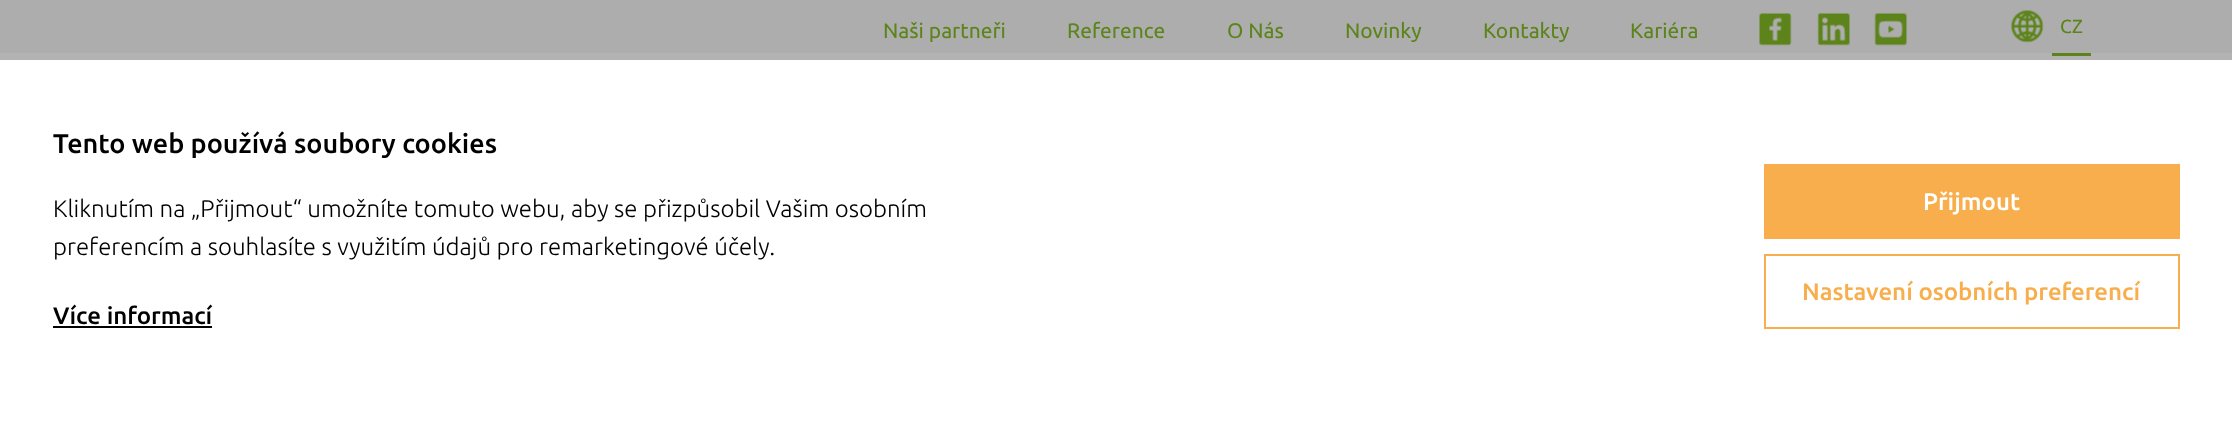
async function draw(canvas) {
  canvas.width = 2232
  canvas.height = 433
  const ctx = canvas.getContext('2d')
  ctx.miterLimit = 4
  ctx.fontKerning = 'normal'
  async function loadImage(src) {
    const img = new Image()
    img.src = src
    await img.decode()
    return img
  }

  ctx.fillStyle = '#adadad'
  ctx.fillRect(0, 0, 2232, 433)
  ctx.fillStyle = '#b3b3b3'
  ctx.fillRect(0, 53, 2232, 7)
  ctx.font = '21px Ubuntu'
  ctx.fillStyle = '#5c841b'
  ctx.fillText('Naši partneři', 883, 38)
  ctx.fillText('Reference', 1067, 38)
  ctx.fillText('O Nás', 1227, 38)
  ctx.fillText('Novinky', 1345, 38)
  ctx.fillText('Kontakty', 1483, 38)
  ctx.fillText('Kariéra', 1630, 38)
  ctx.drawImage(await loadImage('image0.png'), 1759, 13, 33, 33)
  ctx.drawImage(await loadImage('image1.png'), 1817, 13, 33, 33)
  ctx.drawImage(await loadImage('image2.png'), 1874, 13, 33, 33)
  ctx.drawImage(await loadImage('image3.png'), 2011, 10, 33, 33)
  ctx.font = '19px Ubuntu'
  ctx.fillText('CZ', 2060, 33)
  ctx.fillRect(2052, 53, 39, 3)
  ctx.fillStyle = '#fff'
  ctx.fillRect(0, 60, 2232, 373)
  ctx.font = '500 27px Ubuntu'
  ctx.fillStyle = '#000'
  ctx.fillText('Tento web používá soubory cookies', 53, 153)
  ctx.font = '300 24px Ubuntu'
  ctx.fillText('Kliknutím na „Přijmout“ umožníte tomuto webu, aby se přizpůsobil Vašim osobním', 53, 217)
  ctx.fillText('preferencím a souhlasíte s využitím údajů pro remarketingové účely.', 53, 255)
  ctx.font = '500 24px Ubuntu'
  ctx.fillText('Více informací', 53, 324)
  ctx.fillRect(53, 326, 159, 2)
  ctx.fillStyle = '#f8ae4d'
  ctx.fillRect(1764, 164, 416, 75)
  ctx.fillStyle = '#fff'
  ctx.fillText('Přijmout', 1923, 210)
  ctx.strokeStyle = '#f8ae4d'
  ctx.lineWidth = 2
  ctx.strokeRect(1765, 255, 414, 73)
  ctx.fillStyle = '#f8ae4d'
  ctx.fillText('Nastavení osobních preferencí', 1802, 300)
}

draw(document.querySelector('canvas'))
